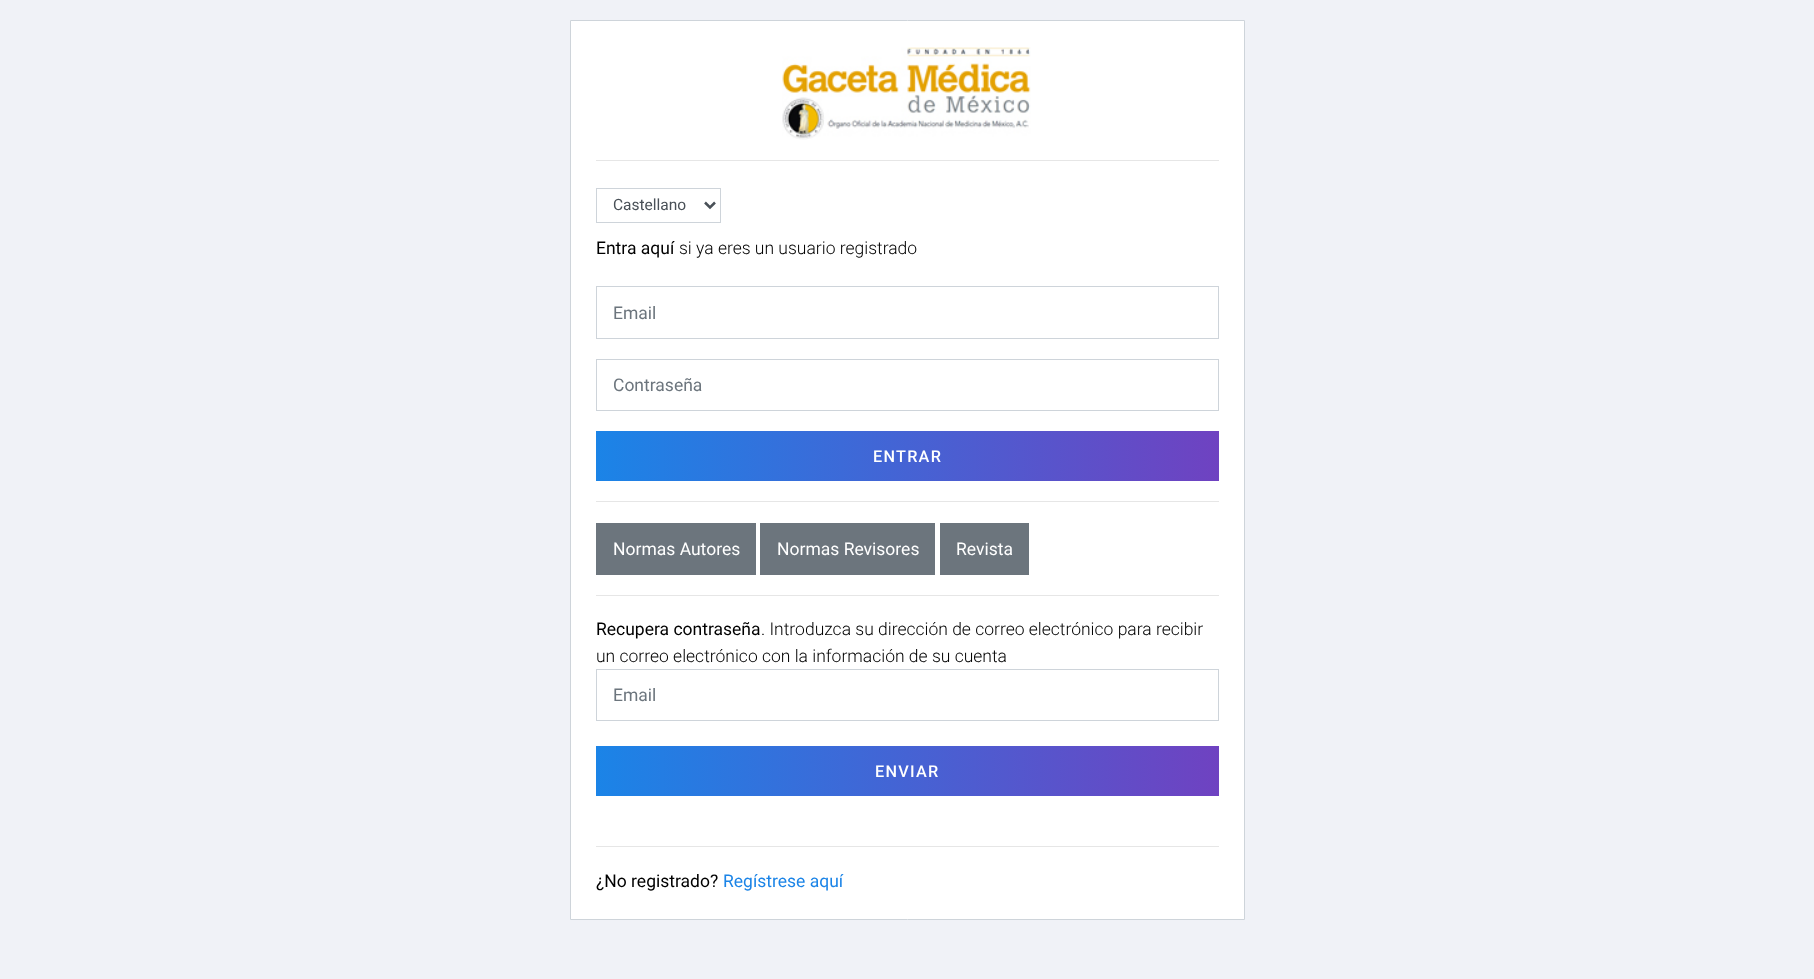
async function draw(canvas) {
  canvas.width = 1814
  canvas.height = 979
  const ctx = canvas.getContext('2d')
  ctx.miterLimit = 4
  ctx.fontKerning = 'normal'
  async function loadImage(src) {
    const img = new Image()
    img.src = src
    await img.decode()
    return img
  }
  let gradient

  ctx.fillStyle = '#f0f2f7'
  ctx.fillRect(0, 0, 1814, 979)
  ctx.fillStyle = '#fff'
  ctx.beginPath()
  ctx.rect(570.5, 20.5, 674, 899)
  ctx.fill()
  ctx.strokeStyle = '#ced4da'
  ctx.stroke()
  ctx.drawImage(await loadImage('image0.png'), 782, 47, 249, 93)
  ctx.fillStyle = '#e6e6e6'
  ctx.fillRect(596, 160, 623, 1)
  ctx.strokeRect(596.5, 188.5, 124, 34)
  ctx.beginPath()
  ctx.moveTo(705, 202.5)
  ctx.lineTo(710, 207.5)
  ctx.lineTo(715, 202.5)
  ctx.strokeStyle = '#495057'
  ctx.lineWidth = 2.5
  ctx.stroke()
  ctx.font = '15.5px Roboto'
  ctx.fillStyle = '#495057'
  ctx.fillText('Castellano', 613, 210)
  ctx.font = '17.5px Roboto'
  ctx.fillStyle = '#000'
  ctx.fillText('Entra aquí', 596, 254)
  ctx.font = '300 17.5px Roboto'
  ctx.fillText('si ya eres un usuario registrado', 679, 254)
  ctx.strokeStyle = '#ced4da'
  ctx.lineWidth = 1
  ctx.strokeRect(596.5, 286.5, 622, 52)
  ctx.font = '17.5px Roboto'
  ctx.fillStyle = '#6c757d'
  ctx.fillText('Email', 613, 319)
  ctx.strokeRect(596.5, 359.5, 622, 51)
  ctx.fillText('Contraseña', 613, 391)
  gradient = ctx.createLinearGradient(596, 456, 1219, 456)
  gradient.addColorStop(0, '#1b84e7')
  gradient.addColorStop(1, '#6f42c1')
  ctx.fillStyle = gradient
  ctx.fillRect(596, 431, 623, 50)
  ctx.letterSpacing = '1.25px'
  ctx.font = '500 16.25px Roboto'
  ctx.fillStyle = '#fff'
  ctx.fillText('ENTRAR', 873, 462)
  ctx.fillStyle = '#e6e6e6'
  ctx.fillRect(596, 501, 623, 1)
  ctx.fillStyle = '#6c757d'
  ctx.fillRect(596, 523, 160, 52)
  ctx.letterSpacing = '0px'
  ctx.font = '17.5px Roboto'
  ctx.fillStyle = '#fff'
  ctx.fillText('Normas Autores', 613, 555)
  ctx.fillStyle = '#6c757d'
  ctx.fillRect(760, 523, 175, 52)
  ctx.fillStyle = '#fff'
  ctx.fillText('Normas Revisores', 777, 555)
  ctx.fillStyle = '#6c757d'
  ctx.fillRect(940, 523, 89, 52)
  ctx.fillStyle = '#fff'
  ctx.fillText('Revista', 956, 555)
  ctx.fillStyle = '#e6e6e6'
  ctx.fillRect(596, 595, 623, 1)
  ctx.fillStyle = '#000'
  ctx.fillText('Recupera contraseña', 596, 635)
  ctx.font = '300 17.5px Roboto'
  ctx.fillText('. Introduzca su dirección de correo electrónico para recibir', 761, 635)
  ctx.fillText('un correo electrónico con la información de su cuenta', 596, 662)
  ctx.strokeRect(596.5, 669.5, 622, 51)
  ctx.font = '17.5px Roboto'
  ctx.fillStyle = '#6c757d'
  ctx.fillText('Email', 613, 701)
  gradient = ctx.createLinearGradient(596, 771, 1219, 771)
  gradient.addColorStop(0, '#1b84e7')
  gradient.addColorStop(1, '#6f42c1')
  ctx.fillStyle = gradient
  ctx.fillRect(596, 746, 623, 50)
  ctx.letterSpacing = '1.25px'
  ctx.font = '500 16.25px Roboto'
  ctx.fillStyle = '#fff'
  ctx.fillText('ENVIAR', 875, 777)
  ctx.fillStyle = '#e6e6e6'
  ctx.fillRect(596, 846, 623, 1)
  ctx.letterSpacing = '0px'
  ctx.font = '17.5px Roboto'
  ctx.fillStyle = '#000'
  ctx.fillText('¿No registrado?', 596, 887)
  ctx.fillStyle = '#1b84e7'
  ctx.fillText('Regístrese aquí', 723, 887)
}

draw(document.querySelector('canvas'))
